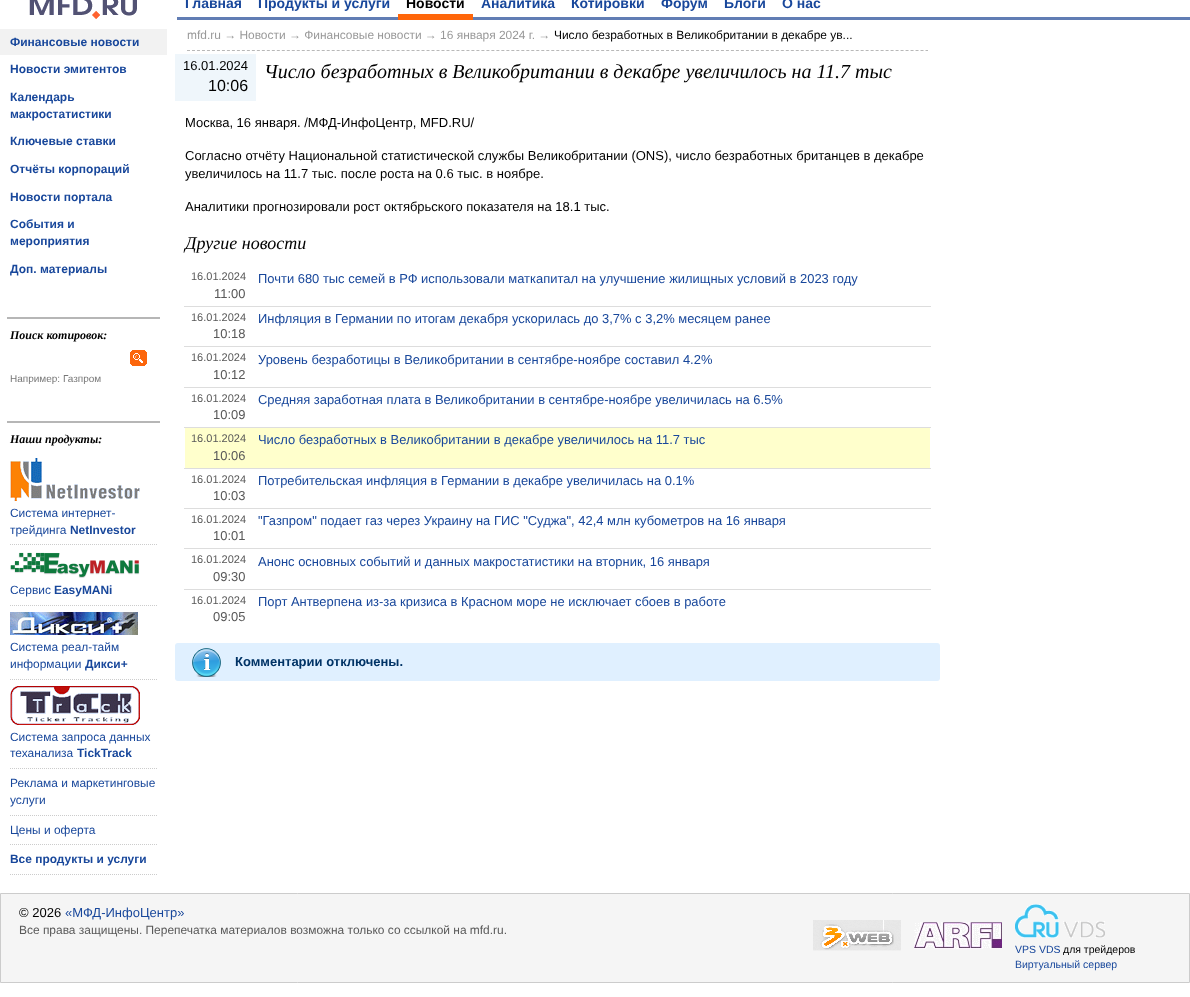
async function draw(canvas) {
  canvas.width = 1190
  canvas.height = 997
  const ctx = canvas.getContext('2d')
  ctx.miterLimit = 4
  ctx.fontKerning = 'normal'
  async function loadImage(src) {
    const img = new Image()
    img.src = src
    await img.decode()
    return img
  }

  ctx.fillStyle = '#fff'
  ctx.fillRect(0, 0, 1190, 997)
  ctx.drawImage(await loadImage('image0.png'), 29, 0, 108, 19)
  ctx.fillStyle = '#617db4'
  ctx.fillRect(177, 17, 1013, 3)
  ctx.font = 'bold 14px Liberation Sans'
  ctx.fillStyle = '#18479b'
  ctx.fillText('Главная', 185, 8)
  ctx.fillText('Продукты и услуги', 258, 8)
  ctx.fillStyle = '#ff660a'
  ctx.fillRect(398, 14, 75, 6)
  ctx.fillStyle = '#000'
  ctx.fillText('Новости', 406, 8)
  ctx.fillStyle = '#18479b'
  ctx.fillText('Аналитика', 481, 8)
  ctx.fillText('Котировки', 571, 8)
  ctx.fillText('Форум', 661, 8)
  ctx.fillText('Блоги', 724, 8)
  ctx.fillText('О нас', 782, 8)
  ctx.fillStyle = '#f2f2f2'
  ctx.fillRect(0, 29, 167, 26)
  ctx.font = 'bold 12px Liberation Sans'
  ctx.fillStyle = '#18479b'
  ctx.fillText('Финансовые новости', 10, 46)
  ctx.fillText('Новости эмитентов', 10, 73)
  ctx.fillText('Календарь', 10, 101)
  ctx.fillText('макростатистики', 10, 118)
  ctx.fillText('Ключевые ставки', 10, 145)
  ctx.fillText('Отчёты корпораций', 10, 173)
  ctx.fillText('Новости портала', 10, 201)
  ctx.fillText('События и', 10, 228)
  ctx.fillText('мероприятия', 10, 245)
  ctx.fillText('Доп. материалы', 10, 273)
  ctx.fillStyle = '#b6b6b6'
  ctx.fillRect(7, 317, 153, 2)
  ctx.fillRect(7, 421, 153, 2)
  ctx.font = 'italic bold 12px Liberation Serif'
  ctx.fillStyle = '#000'
  ctx.fillText('Поиск котировок:', 10, 339)
  ctx.drawImage(await loadImage('image1.png'), 130, 350, 17, 16)
  ctx.font = '10px Liberation Sans'
  ctx.fillStyle = '#777'
  ctx.fillText('Например: Газпром', 10, 382)
  ctx.font = 'italic bold 12px Liberation Serif'
  ctx.fillStyle = '#000'
  ctx.fillText('Наши продукты:', 10, 443)
  ctx.beginPath()
  ctx.moveTo(10, 544.5)
  ctx.lineTo(157, 544.5)
  ctx.strokeStyle = '#ccc'
  ctx.setLineDash([1, 1])
  ctx.stroke()
  ctx.drawImage(await loadImage('image2.png'), 10, 458, 130, 43)
  ctx.font = '11.95px Liberation Sans'
  ctx.fillStyle = '#18479b'
  ctx.fillText('Система интернет-', 10, 517)
  ctx.fillText('трейдинга', 10, 534)
  ctx.font = 'bold 11.95px Liberation Sans'
  ctx.fillText('NetInvestor', 70, 534)
  ctx.beginPath()
  ctx.moveTo(10, 605.5)
  ctx.lineTo(157, 605.5)
  ctx.stroke()
  ctx.drawImage(await loadImage('image3.png'), 10, 552, 130, 26)
  ctx.font = '11.95px Liberation Sans'
  ctx.fillText('Сервис', 10, 594)
  ctx.font = 'bold 11.95px Liberation Sans'
  ctx.fillText('EasyMANi', 54, 594)
  ctx.beginPath()
  ctx.moveTo(10, 679.5)
  ctx.lineTo(157, 679.5)
  ctx.stroke()
  ctx.drawImage(await loadImage('image4.png'), 10, 612, 128, 23)
  ctx.font = '11.95px Liberation Sans'
  ctx.fillText('Система реал-тайм', 10, 651)
  ctx.fillText('информации', 10, 668)
  ctx.font = 'bold 11.95px Liberation Sans'
  ctx.fillText('Дикси+', 85, 668)
  ctx.beginPath()
  ctx.moveTo(10, 768.5)
  ctx.lineTo(157, 768.5)
  ctx.stroke()
  ctx.drawImage(await loadImage('image5.png'), 10, 686, 130, 39)
  ctx.font = '11.95px Liberation Sans'
  ctx.fillText('Система запроса данных', 10, 741)
  ctx.fillText('теханализа', 10, 757)
  ctx.font = 'bold 11.95px Liberation Sans'
  ctx.fillText('TickTrack', 77, 757)
  ctx.beginPath()
  ctx.moveTo(10, 815.5)
  ctx.lineTo(157, 815.5)
  ctx.stroke()
  ctx.font = '11.95px Liberation Sans'
  ctx.fillText('Реклама и маркетинговые', 10, 787)
  ctx.fillText('услуги', 10, 804)
  ctx.beginPath()
  ctx.moveTo(10, 844.5)
  ctx.lineTo(157, 844.5)
  ctx.stroke()
  ctx.fillText('Цены и оферта', 10, 834)
  ctx.beginPath()
  ctx.moveTo(10, 874.5)
  ctx.lineTo(157, 874.5)
  ctx.stroke()
  ctx.font = 'bold 11.95px Liberation Sans'
  ctx.fillText('Все продукты и услуги', 10, 863)
  ctx.beginPath()
  ctx.moveTo(187, 50.5)
  ctx.lineTo(928, 50.5)
  ctx.strokeStyle = '#b8b8b8'
  ctx.setLineDash([3, 1.99])
  ctx.stroke()
  ctx.font = '11.95px Liberation Sans'
  ctx.fillStyle = '#999'
  ctx.fillText('mfd.ru → Новости → Финансовые новости → 16 января 2024 г. →', 187, 39)
  ctx.fillStyle = '#000'
  ctx.fillText('Число безработных в Великобритании в декабре ув...', 554, 39)
  ctx.fillStyle = '#eff6fb'
  ctx.fillRect(175, 54, 81, 47)
  ctx.font = '13px Liberation Sans'
  ctx.fillStyle = '#000'
  ctx.fillText('16.01.2024', 183, 70)
  ctx.font = '16px Liberation Sans'
  ctx.fillText('10:06', 208, 91)
  ctx.font = 'italic 20px Liberation Serif'
  ctx.fillText('Число безработных в Великобритании в декабре увеличилось на 11.7 тыс', 264, 78)
  ctx.font = '13px Liberation Sans'
  ctx.fillText('Москва, 16 января. /МФД-ИнфоЦентр, MFD.RU/', 185, 127)
  ctx.fillText('Согласно отчёту Национальной статистической службы Великобритании (ONS), число безработных британцев в декабре', 185, 160)
  ctx.fillText('увеличилось на 11.7 тыс. после роста на 0.6 тыс. в ноябре.', 185, 178)
  ctx.fillText('Аналитики прогнозировали рост октябрьского показателя на 18.1 тыс.', 185, 211)
  ctx.font = 'italic 18px Liberation Serif'
  ctx.fillText('Другие новости', 185, 249)
  ctx.font = '11px Liberation Sans'
  ctx.fillStyle = '#595959'
  ctx.fillText('16.01.2024', 191, 280)
  ctx.font = '12.95px Liberation Sans'
  ctx.fillText('11:00', 214, 298)
  ctx.fillStyle = '#ddd'
  ctx.fillRect(184, 306, 747, 1)
  ctx.fillStyle = '#18479b'
  ctx.fillText('Почти 680 тыс семей в РФ использовали маткапитал на улучшение жилищных условий в 2023 году', 258, 283)
  ctx.font = '11px Liberation Sans'
  ctx.fillStyle = '#595959'
  ctx.fillText('16.01.2024', 191, 321)
  ctx.font = '12.95px Liberation Sans'
  ctx.fillText('10:18', 213, 338)
  ctx.fillStyle = '#ddd'
  ctx.fillRect(184, 346, 747, 1)
  ctx.fillStyle = '#18479b'
  ctx.fillText('Инфляция в Германии по итогам декабря ускорилась до 3,7% с 3,2% месяцем ранее', 258, 323)
  ctx.font = '11px Liberation Sans'
  ctx.fillStyle = '#595959'
  ctx.fillText('16.01.2024', 191, 361)
  ctx.font = '12.95px Liberation Sans'
  ctx.fillText('10:12', 213, 379)
  ctx.fillStyle = '#ddd'
  ctx.fillRect(184, 387, 747, 1)
  ctx.fillStyle = '#18479b'
  ctx.fillText('Уровень безработицы в Великобритании в сентябре-ноябре составил 4.2%', 258, 364)
  ctx.font = '11px Liberation Sans'
  ctx.fillStyle = '#595959'
  ctx.fillText('16.01.2024', 191, 402)
  ctx.font = '12.95px Liberation Sans'
  ctx.fillText('10:09', 213, 419)
  ctx.fillStyle = '#ddd'
  ctx.fillRect(184, 427, 747, 1)
  ctx.fillStyle = '#18479b'
  ctx.fillText('Средняя заработная плата в Великобритании в сентябре-ноябре увеличилась на 6.5%', 258, 404)
  ctx.fillStyle = '#ffc'
  ctx.fillRect(185, 428, 745, 40)
  ctx.font = '11px Liberation Sans'
  ctx.fillStyle = '#595959'
  ctx.fillText('16.01.2024', 191, 442)
  ctx.font = '12.95px Liberation Sans'
  ctx.fillText('10:06', 213, 460)
  ctx.fillStyle = '#ddd'
  ctx.fillRect(184, 468, 747, 1)
  ctx.fillStyle = '#18479b'
  ctx.fillText('Число безработных в Великобритании в декабре увеличилось на 11.7 тыс', 258, 444)
  ctx.font = '11px Liberation Sans'
  ctx.fillStyle = '#595959'
  ctx.fillText('16.01.2024', 191, 483)
  ctx.font = '12.95px Liberation Sans'
  ctx.fillText('10:03', 213, 500)
  ctx.fillStyle = '#ddd'
  ctx.fillRect(184, 508, 747, 1)
  ctx.fillStyle = '#18479b'
  ctx.fillText('Потребительская инфляция в Германии в декабре увеличилась на 0.1%', 258, 485)
  ctx.font = '11px Liberation Sans'
  ctx.fillStyle = '#595959'
  ctx.fillText('16.01.2024', 191, 523)
  ctx.font = '12.95px Liberation Sans'
  ctx.fillText('10:01', 213, 540)
  ctx.fillStyle = '#ddd'
  ctx.fillRect(184, 548, 747, 1)
  ctx.fillStyle = '#18479b'
  ctx.fillText('"Газпром" подает газ через Украину на ГИС "Суджа", 42,4 млн кубометров на 16 января', 258, 525)
  ctx.font = '11px Liberation Sans'
  ctx.fillStyle = '#595959'
  ctx.fillText('16.01.2024', 191, 563)
  ctx.font = '12.95px Liberation Sans'
  ctx.fillText('09:30', 213, 581)
  ctx.fillStyle = '#ddd'
  ctx.fillRect(184, 589, 747, 1)
  ctx.fillStyle = '#18479b'
  ctx.fillText('Анонс основных событий и данных макростатистики на вторник, 16 января', 258, 566)
  ctx.font = '11px Liberation Sans'
  ctx.fillStyle = '#595959'
  ctx.fillText('16.01.2024', 191, 604)
  ctx.font = '12.95px Liberation Sans'
  ctx.fillText('09:05', 213, 621)
  ctx.fillStyle = '#18479b'
  ctx.fillText('Порт Антверпена из-за кризиса в Красном море не исключает сбоев в работе', 258, 606)
  ctx.fillStyle = '#e0f0ff'
  ctx.beginPath()
  ctx.roundRect(175, 643, 765, 38, 3)
  ctx.fill()
  ctx.drawImage(await loadImage('image6.png'), 192, 648, 29, 29)
  ctx.font = 'bold 13px Liberation Sans'
  ctx.fillStyle = '#036'
  ctx.fillText('Комментарии отключены.', 235, 666)
  ctx.fillStyle = '#f5f5f5'
  ctx.beginPath()
  ctx.rect(0.5, 893.5, 1189, 89)
  ctx.fill()
  ctx.strokeStyle = '#ccc'
  ctx.setLineDash([])
  ctx.stroke()
  ctx.font = '13px Liberation Sans'
  ctx.fillStyle = '#000'
  ctx.fillText('© 2026', 19, 917)
  ctx.fillStyle = '#18479b'
  ctx.fillText('«МФД-ИнфоЦентр»', 65, 917)
  ctx.font = '11.95px Liberation Sans'
  ctx.fillStyle = '#595959'
  ctx.fillText('Все права защищены. Перепечатка материалов возможна только со ссылкой на mfd.ru.', 19, 934)
  ctx.drawImage(await loadImage('image7.png'), 813, 920, 88, 31)
  ctx.drawImage(await loadImage('image8.png'), 914, 922, 88, 27)
  ctx.drawImage(await loadImage('image9.png'), 1015, 904, 90, 34)
  ctx.font = '10.5px Liberation Sans'
  ctx.fillStyle = '#18479b'
  ctx.fillText('VPS VDS', 1015, 953)
  ctx.fillStyle = '#000'
  ctx.fillText('для трейдеров', 1063, 953)
  ctx.fillStyle = '#18479b'
  ctx.fillText('Виртуальный сервер', 1015, 968)
}

draw(document.querySelector('canvas'))
